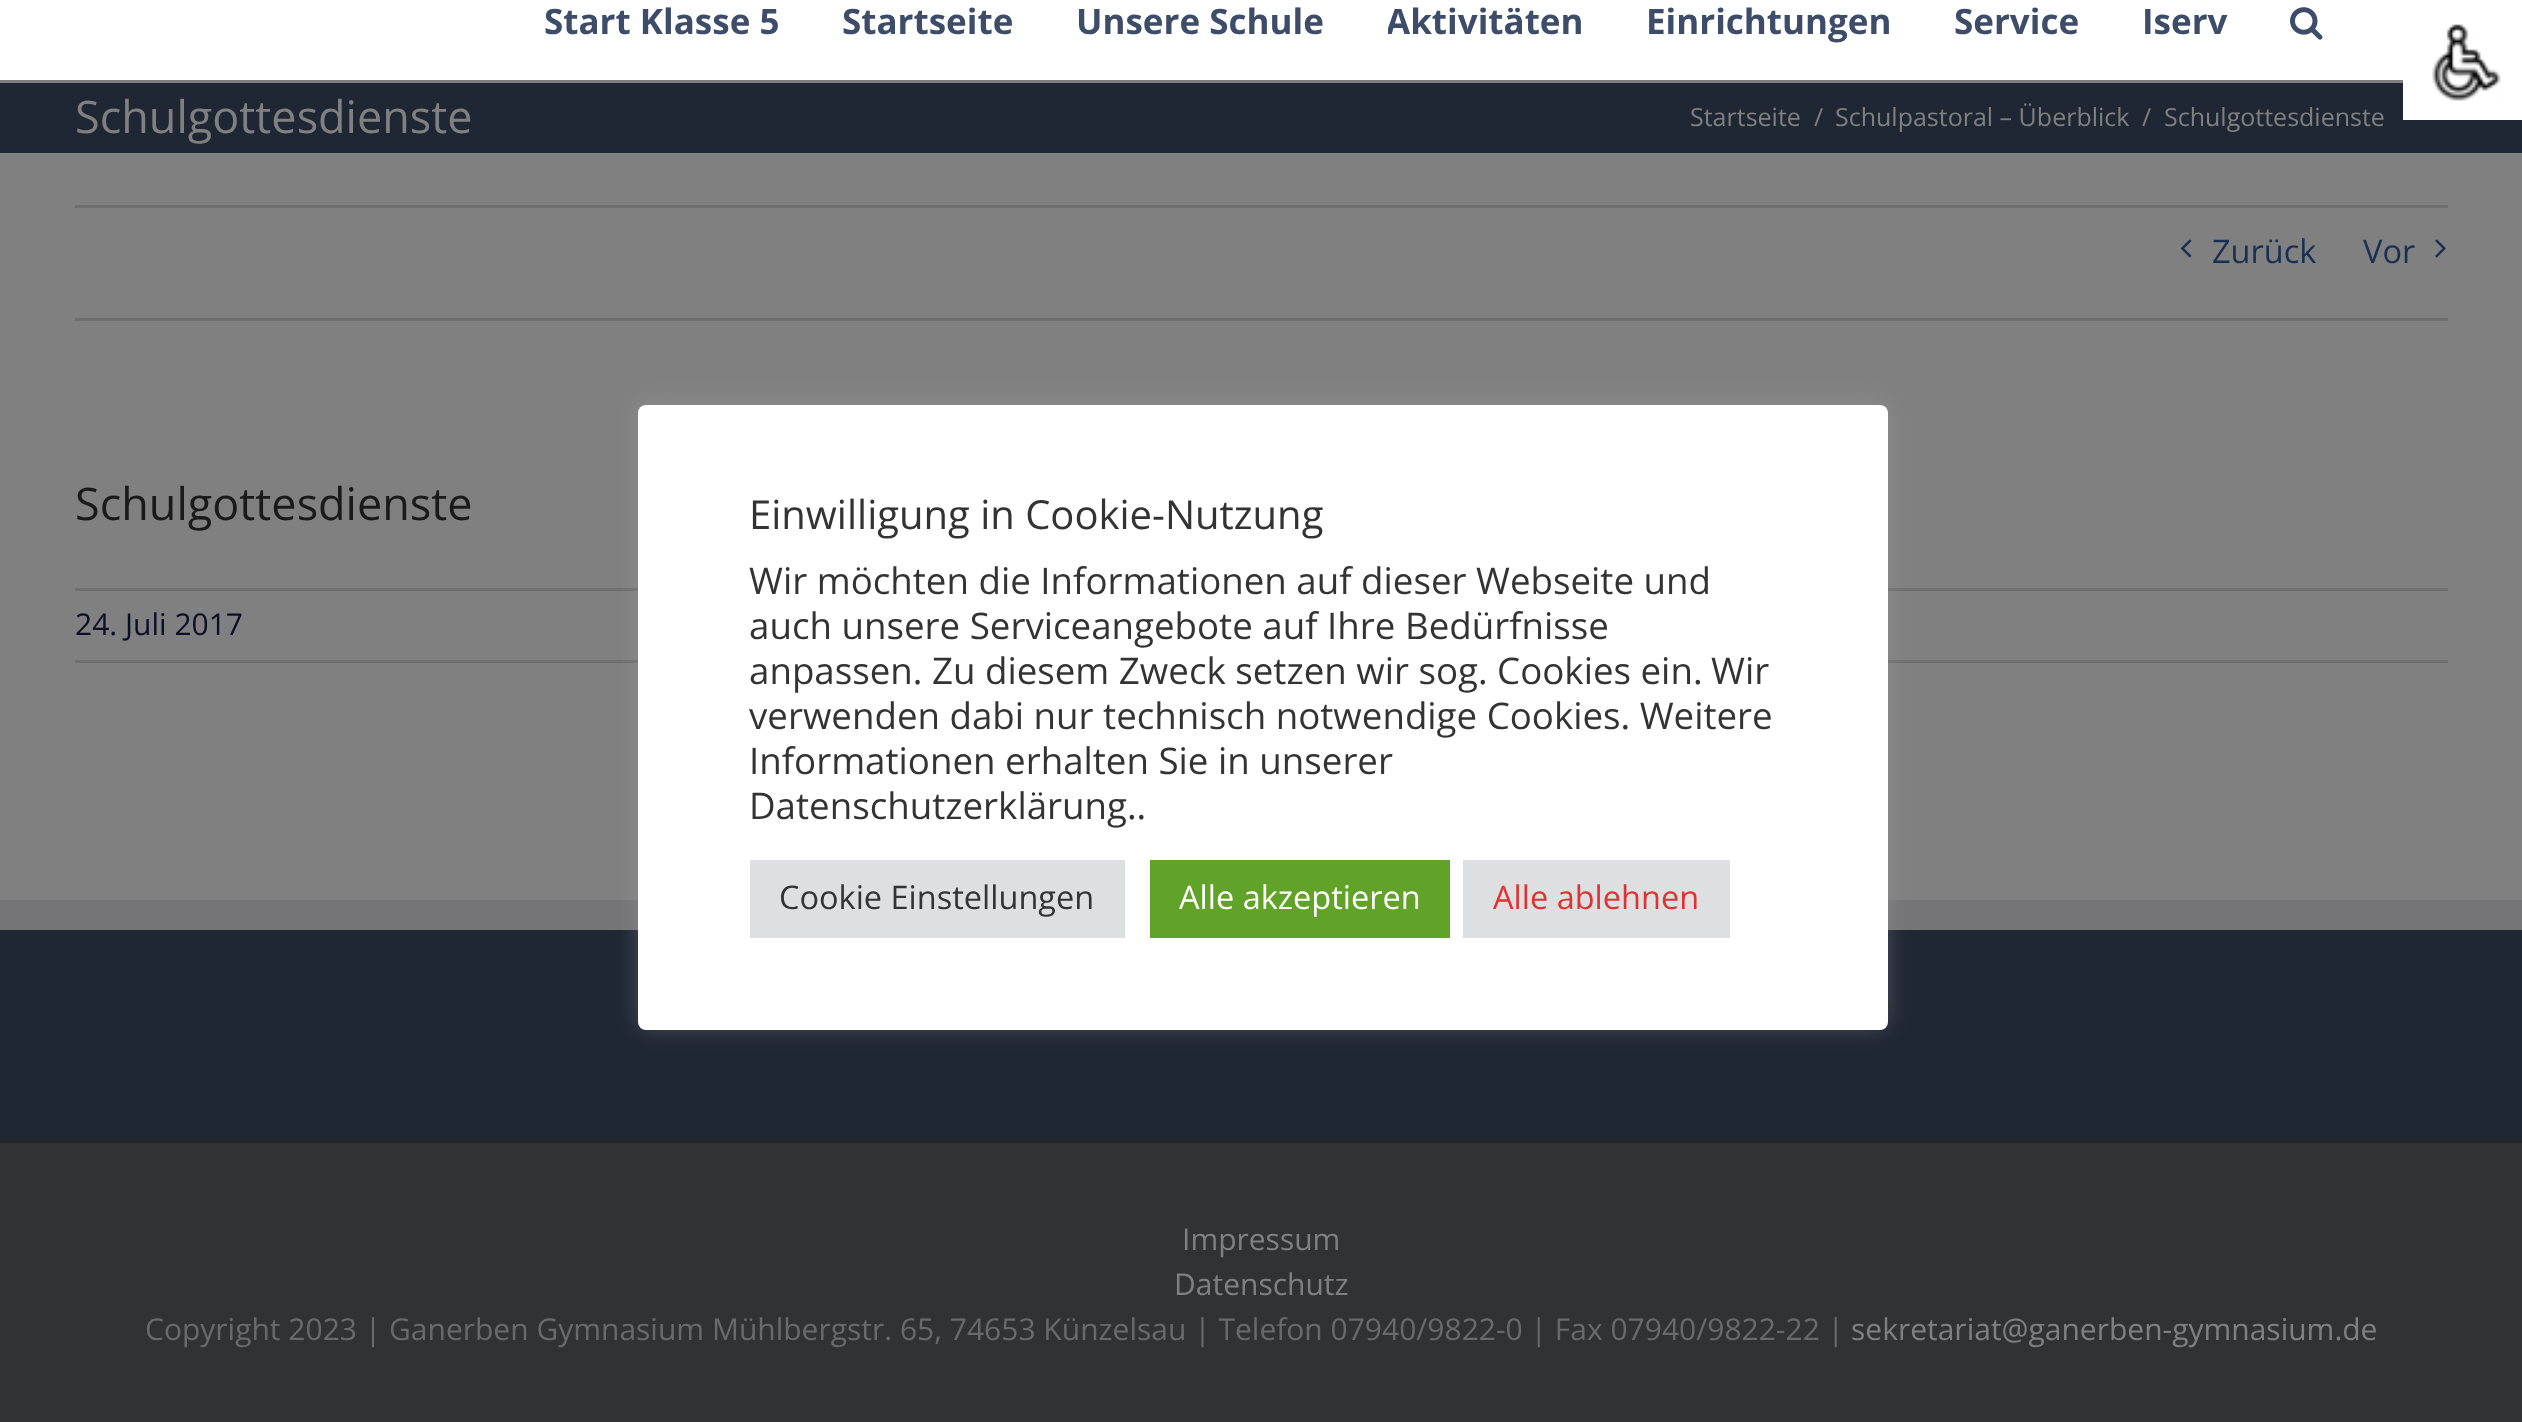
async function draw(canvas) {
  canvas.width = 2522
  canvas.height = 1422
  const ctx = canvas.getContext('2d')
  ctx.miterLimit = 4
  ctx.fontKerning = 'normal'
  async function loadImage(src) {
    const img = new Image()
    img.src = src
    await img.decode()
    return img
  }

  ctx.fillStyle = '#808080'
  ctx.fillRect(0, 0, 2522, 1422)
  ctx.fillStyle = '#fff'
  ctx.fillRect(0, 0, 2403, 80)
  ctx.font = 'bold 35px Open Sans'
  ctx.fillStyle = '#3d4c68'
  ctx.fillText('Start Klasse 5', 544, 34)
  ctx.fillText('Startseite', 842, 34)
  ctx.fillText('Unsere Schule', 1076, 34)
  ctx.save()
  ctx.beginPath()
  ctx.rect(1388, 0, 260, 80)
  ctx.clip()
  ctx.fillText('Aktivitäten', 1386, 34)
  ctx.restore()
  ctx.fillText('Einrichtungen', 1646, 34)
  ctx.fillText('Service', 1954, 34)
  ctx.fillText('Iserv', 2142, 34)
  ctx.drawImage(await loadImage('image0.png'), 2290, 7, 33, 33)
  ctx.fillStyle = '#1f2634'
  ctx.fillRect(0, 83, 2522, 70)
  ctx.font = '45px Open Sans'
  ctx.fillStyle = '#808080'
  ctx.fillText('Schulgottesdienste', 75, 133)
  ctx.font = '25px Open Sans'
  ctx.fillText('Startseite', 1690, 126)
  ctx.fillText('/', 1814, 126)
  ctx.fillText('Schulpastoral – Überblick', 1835, 126)
  ctx.fillText('/', 2142, 126)
  ctx.fillText('Schulgottesdienste', 2164, 126)
  ctx.fillStyle = '#706f6f'
  ctx.fillRect(75, 205, 2373, 3)
  ctx.fillRect(75, 318, 2373, 3)
  ctx.drawImage(await loadImage('image1.png'), 2180, 239, 12, 19)
  ctx.font = '32.5px Open Sans'
  ctx.fillStyle = '#1a3052'
  ctx.fillText('Zurück', 2212, 263)
  ctx.fillText('Vor', 2363, 263)
  ctx.drawImage(await loadImage('image2.png'), 2435, 239, 11, 19)
  ctx.font = '45px Open Sans'
  ctx.fillStyle = '#1a1a1a'
  ctx.fillText('Schulgottesdienste', 75, 520)
  ctx.fillStyle = '#706f6f'
  ctx.fillRect(75, 588, 2373, 3)
  ctx.fillRect(75, 660, 2373, 3)
  ctx.font = '30px Open Sans'
  ctx.fillStyle = '#0c0d29'
  ctx.fillText('24. Juli 2017', 75, 635)
  ctx.fillStyle = '#1f2634'
  ctx.fillRect(0, 930, 2522, 210)
  ctx.fillStyle = '#757577'
  ctx.fillRect(0, 900, 2522, 30)
  ctx.fillStyle = '#313234'
  ctx.fillRect(0, 1143, 2522, 279)
  ctx.fillStyle = '#262627'
  ctx.fillRect(0, 1140, 2522, 3)
  ctx.fillStyle = '#808080'
  ctx.fillText('Impressum', 1182, 1250)
  ctx.fillText('Datenschutz', 1174, 1295)
  ctx.fillStyle = '#6a6a6a'
  ctx.fillText('Copyright 2023 | Ganerben Gymnasium Mühlbergstr. 65, 74653 Künzelsau | Telefon 07940/9822-0 | Fax 07940/9822-22 |', 145, 1340)
  ctx.fillStyle = '#808080'
  ctx.fillText('sekretariat@ganerben-gymnasium.de', 1851, 1340)
  ctx.fillStyle = '#fff'
  ctx.fillRect(2403, 0, 119, 120)
  ctx.drawImage(await loadImage('image3.png'), 2432, 24, 69, 77)
  ctx.fillStyle = '#acabab4d'
  ctx.filter = 'blur(12.5px)'
  ctx.beginPath()
  ctx.roundRect(638, 403, 1250, 625, 8)
  ctx.fill()
  ctx.filter = 'none'
  ctx.fillStyle = '#fff'
  ctx.beginPath()
  ctx.roundRect(638, 405, 1250, 625, 8)
  ctx.fill()
  ctx.font = '40px Open Sans'
  ctx.fillStyle = '#333'
  ctx.fillText('Einwilligung in Cookie-Nutzung', 749, 529)
  ctx.font = '36.7px Open Sans'
  ctx.fillText('Wir möchten die Informationen auf dieser Webseite und', 749, 594)
  ctx.fillText('auch unsere Serviceangebote auf Ihre Bedürfnisse', 749, 639)
  ctx.fillText('anpassen. Zu diesem Zweck setzen wir sog. Cookies ein.', 749, 684)
  ctx.fillText('Wir', 1711, 684)
  ctx.fillText('verwenden dabi nur technisch notwendige Cookies. Weitere', 749, 729)
  ctx.fillText('Informationen erhalten Sie in unserer', 749, 774)
  ctx.fillText('Datenschutzerklärung..', 749, 819)
  ctx.fillStyle = '#dedfe0'
  ctx.fillRect(750, 860, 375, 78)
  ctx.font = '32.5px Open Sans'
  ctx.fillStyle = '#333'
  ctx.fillText('Cookie Einstellungen', 779, 909)
  ctx.fillStyle = '#61a229'
  ctx.fillRect(1150, 860, 300, 78)
  ctx.fillStyle = '#fff'
  ctx.fillText('Alle akzeptieren', 1179, 909)
  ctx.fillStyle = '#dedfe0'
  ctx.fillRect(1463, 860, 267, 78)
  ctx.fillStyle = '#d33'
  ctx.fillText('Alle ablehnen', 1493, 909)
}

draw(document.querySelector('canvas'))
